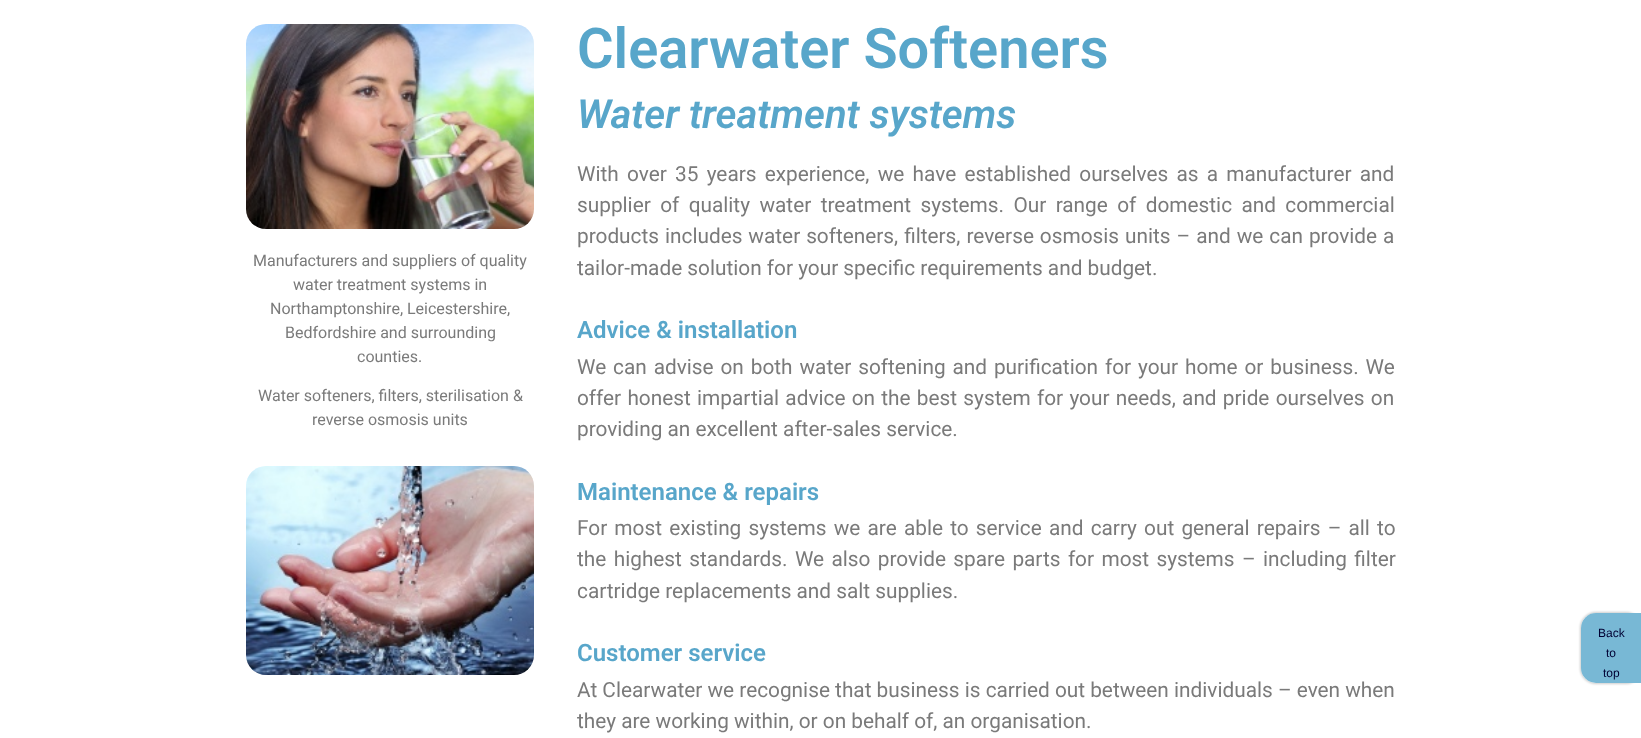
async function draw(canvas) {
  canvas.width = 1641
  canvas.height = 738
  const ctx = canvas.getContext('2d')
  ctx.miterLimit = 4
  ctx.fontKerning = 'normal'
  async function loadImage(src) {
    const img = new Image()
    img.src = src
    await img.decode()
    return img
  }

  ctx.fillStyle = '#fff'
  ctx.fillRect(0, 0, 1641, 738)
  ctx.drawImage(await loadImage('image0.png'), 246, 24, 288, 205)
  ctx.font = '16px Roboto'
  ctx.fillStyle = '#7a7a7a'
  ctx.fillText('Manufacturers and suppliers of quality', 253, 266)
  ctx.fillText('water treatment systems in', 293, 290)
  ctx.fillText('Northamptonshire, Leicestershire,', 270, 314)
  ctx.fillText('Bedfordshire and surrounding', 285, 338)
  ctx.fillText('counties.', 357, 362)
  ctx.fillText('Water softeners, filters, sterilisation &', 258, 401)
  ctx.fillText('reverse osmosis units', 312, 425)
  ctx.drawImage(await loadImage('image1.png'), 246, 466, 288, 209)
  ctx.font = '600 56px Roboto'
  ctx.fillStyle = '#58a6ca'
  ctx.fillText('Clearwater Softeners', 577, 68)
  ctx.font = 'italic 600 40px Roboto'
  ctx.fillText('Water treatment systems', 577, 128)
  ctx.wordSpacing = '3.1px'
  ctx.font = '20.8px Roboto'
  ctx.fillStyle = '#7a7a7a'
  ctx.fillText('With over 35 years experience, we have established ourselves as a manufacturer and', 577, 181)
  ctx.wordSpacing = '4.25px'
  ctx.fillText('supplier of quality water treatment systems. Our range of domestic and commercial', 577, 212)
  ctx.wordSpacing = '0.8px'
  ctx.fillText('products includes water softeners, filters, reverse osmosis units – and we can provide a', 577, 243)
  ctx.wordSpacing = '0px'
  ctx.fillText('tailor-made solution for your specific requirements and budget.', 577, 275)
  ctx.font = '600 24px Roboto'
  ctx.fillStyle = '#58a6ca'
  ctx.fillText('Advice & installation', 577, 338)
  ctx.wordSpacing = '1.75px'
  ctx.font = '20.8px Roboto'
  ctx.fillStyle = '#7a7a7a'
  ctx.fillText('We can advise on both water softening and purification for your home or business. We', 577, 374)
  ctx.wordSpacing = '1.1px'
  ctx.fillText('offer honest impartial advice on the best system for your needs, and pride ourselves on', 577, 405)
  ctx.wordSpacing = '0px'
  ctx.fillText('providing an excellent after-sales service.', 577, 436)
  ctx.font = '600 24px Roboto'
  ctx.fillStyle = '#58a6ca'
  ctx.fillText('Maintenance & repairs', 577, 500)
  ctx.wordSpacing = '2px'
  ctx.font = '20.8px Roboto'
  ctx.fillStyle = '#7a7a7a'
  ctx.fillText('For most existing systems we are able to service and carry out general repairs – all to', 577, 535)
  ctx.wordSpacing = '2.25px'
  ctx.fillText('the highest standards. We also provide spare parts for most systems – including filter', 577, 566)
  ctx.wordSpacing = '0px'
  ctx.fillText('cartridge replacements and salt supplies.', 577, 598)
  ctx.font = '600 24px Roboto'
  ctx.fillStyle = '#58a6ca'
  ctx.fillText('Customer service', 577, 661)
  ctx.font = '20.8px Roboto'
  ctx.fillStyle = '#7a7a7a'
  ctx.fillText('At Clearwater we recognise that business is carried out between individuals – even when', 577, 697)
  ctx.fillText('they are working within, or on behalf of, an organisation.', 577, 728)
  ctx.save()
  ctx.beginPath()
  ctx.moveTo(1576, 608)
  ctx.lineTo(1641, 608)
  ctx.lineTo(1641, 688)
  ctx.lineTo(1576, 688)
  ctx.closePath()
  ctx.moveTo(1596, 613)
  ctx.lineTo(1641, 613)
  ctx.lineTo(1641, 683)
  ctx.lineTo(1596, 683)
  ctx.bezierCurveTo(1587.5, 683, 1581, 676.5, 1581, 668)
  ctx.lineTo(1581, 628)
  ctx.bezierCurveTo(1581, 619.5, 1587.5, 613, 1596, 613)
  ctx.closePath()
  ctx.clip('evenodd')
  ctx.fillStyle = '#00000033'
  ctx.filter = 'blur(1px)'
  ctx.beginPath()
  ctx.roundRect(1580, 612, 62, 72, 16)
  ctx.fill()
  ctx.filter = 'none'
  ctx.restore()
  ctx.fillStyle = '#56a6cacc'
  ctx.beginPath()
  ctx.roundRect(1581, 613, 60, 70, [15, 0, 0, 15])
  ctx.fill()
  ctx.font = '12px Liberation Sans'
  ctx.fillStyle = '#003'
  ctx.fillText('Back', 1598, 637)
  ctx.fillText('to', 1606, 657)
  ctx.fillText('top', 1603, 677)
}

draw(document.querySelector('canvas'))
